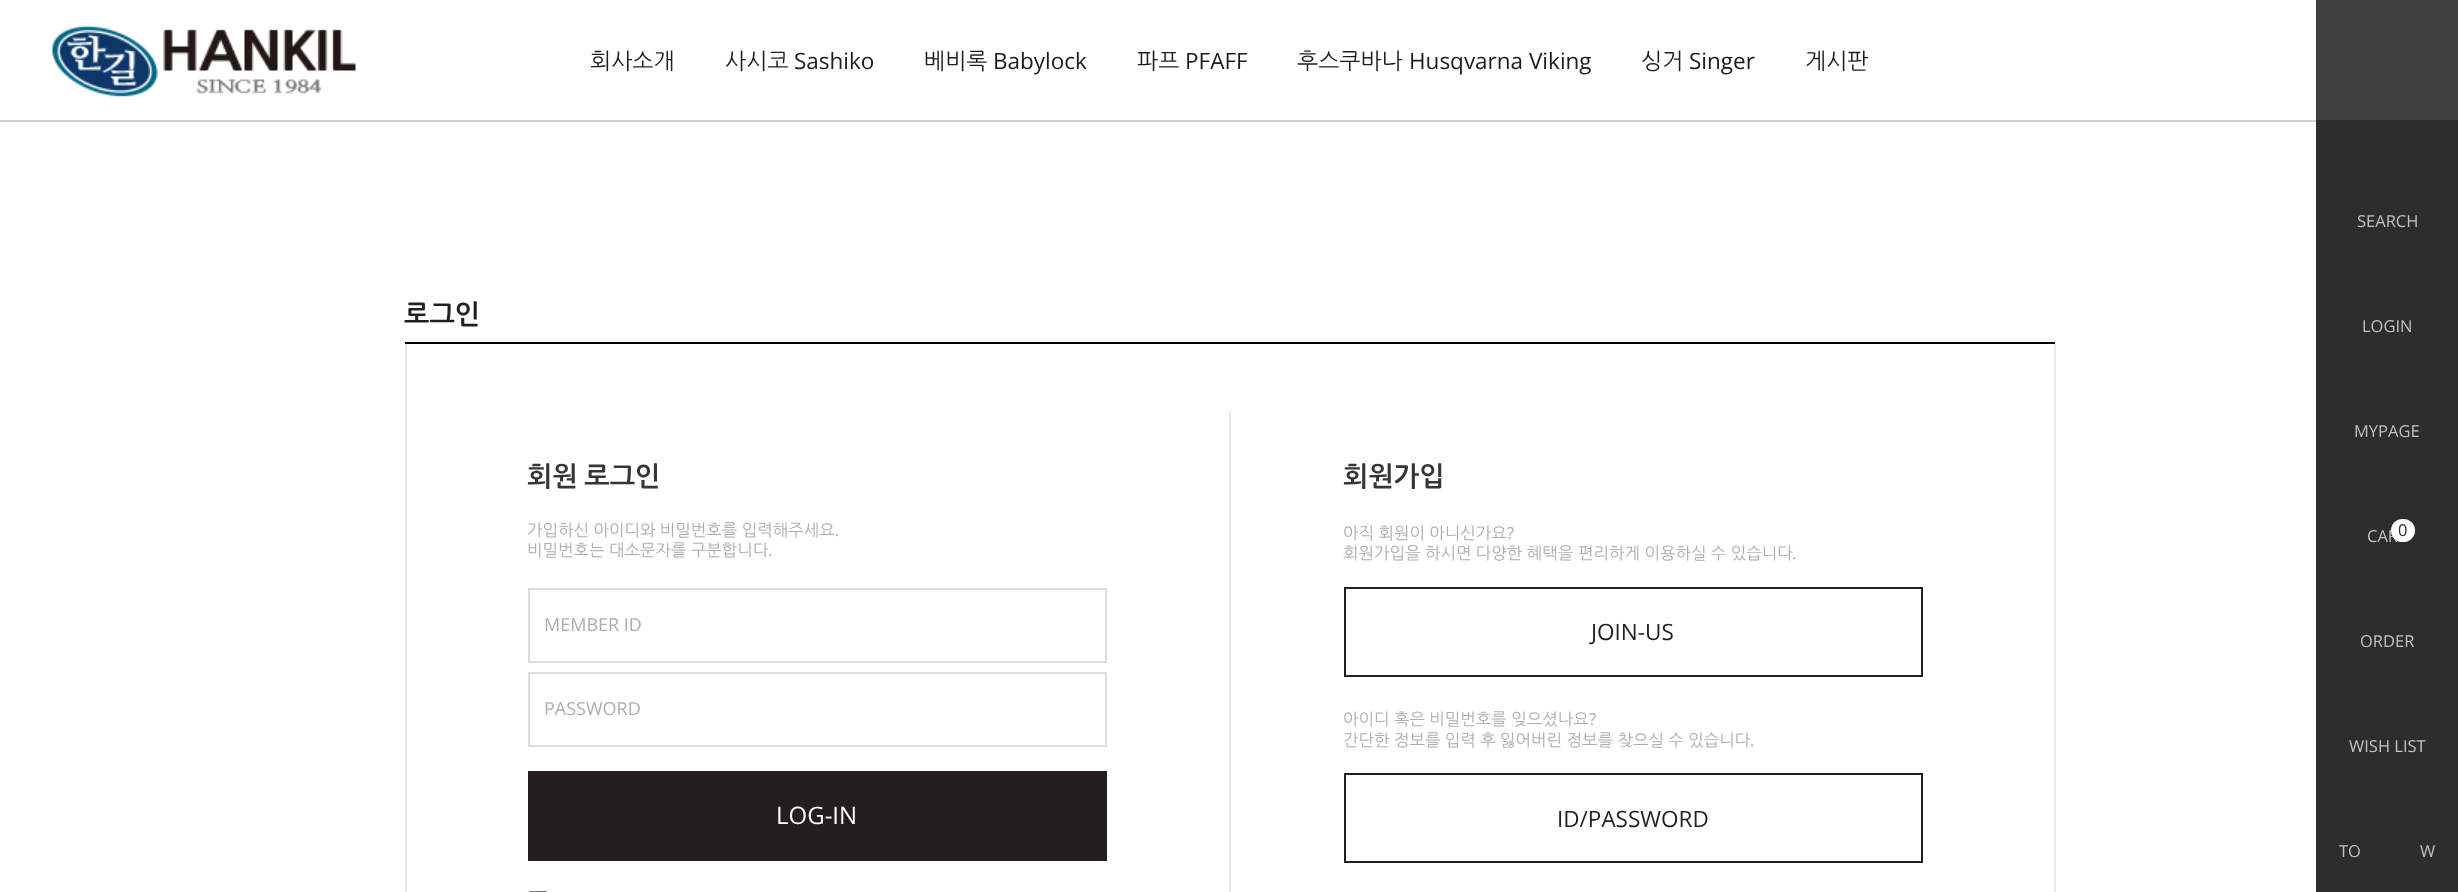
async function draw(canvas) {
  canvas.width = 2458
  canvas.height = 892
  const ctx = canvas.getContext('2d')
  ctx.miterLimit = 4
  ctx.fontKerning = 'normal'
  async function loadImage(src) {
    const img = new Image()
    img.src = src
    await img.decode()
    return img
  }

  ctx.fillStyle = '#fff'
  ctx.fillRect(0, 0, 2458, 892)
  ctx.fillStyle = '#cfd0d1'
  ctx.fillRect(0, 120, 2316, 2)
  ctx.drawImage(await loadImage('image0.png'), 52, 25, 304, 72)
  ctx.font = '22.5px NanumGothic'
  ctx.fillStyle = '#1c1c1c'
  ctx.fillText('회사소개', 590, 69)
  ctx.fillText('사시코', 725, 69)
  ctx.font = '22.5px Open Sans'
  ctx.fillText('Sashiko', 794, 69)
  ctx.font = '22.5px NanumGothic'
  ctx.fillText('베비록', 924, 69)
  ctx.font = '22.5px Open Sans'
  ctx.fillText('Babylock', 993, 69)
  ctx.font = '22.5px NanumGothic'
  ctx.fillText('파프', 1137, 69)
  ctx.font = '22.5px Open Sans'
  ctx.fillText('PFAFF', 1185, 69)
  ctx.font = '22.5px NanumGothic'
  ctx.fillText('후스쿠바나', 1297, 69)
  ctx.font = '22.5px Open Sans'
  ctx.fillText('Husqvarna Viking', 1409, 69)
  ctx.font = '22.5px NanumGothic'
  ctx.fillText('싱거', 1641, 69)
  ctx.font = '22.5px Open Sans'
  ctx.fillText('Singer', 1689, 69)
  ctx.font = '22.5px NanumGothic'
  ctx.fillText('게시판', 1805, 69)
  ctx.fillStyle = '#000'
  ctx.fillRect(405, 342, 1650, 2)
  ctx.font = 'bold 27px NanumGothic'
  ctx.fillStyle = '#231f20'
  ctx.fillText('로그인', 404, 324)
  ctx.fillStyle = '#e9e9e9'
  ctx.fillRect(2054, 344, 2, 548)
  ctx.fillRect(405, 344, 2, 548)
  ctx.fillRect(1229, 410, 2, 482)
  ctx.wordSpacing = '-1px'
  ctx.fillStyle = '#363636'
  ctx.fillText('회원 로그인', 527, 486)
  ctx.wordSpacing = '-0.25px'
  ctx.font = '16.5px NanumGothic'
  ctx.fillStyle = '#adadad'
  ctx.fillText('가입하신 아이디와 비밀번호를 입력해주세요', 527, 536)
  ctx.wordSpacing = '0px'
  ctx.font = '16.5px Open Sans'
  ctx.fillText('.', 835, 536)
  ctx.wordSpacing = '-0.25px'
  ctx.font = '16.5px NanumGothic'
  ctx.fillText('비밀번호는 대소문자를 구분합니다', 527, 556)
  ctx.wordSpacing = '0px'
  ctx.font = '16.5px Open Sans'
  ctx.fillText('.', 768, 556)
  ctx.strokeStyle = '#ddd'
  ctx.lineWidth = 2
  ctx.strokeRect(529, 589, 577, 73)
  ctx.font = '18px Open Sans'
  ctx.fillText('MEMBER ID', 544, 631)
  ctx.strokeRect(529, 673, 577, 73)
  ctx.fillText('PASSWORD', 544, 715)
  ctx.fillStyle = '#231f20'
  ctx.fillRect(528, 771, 579, 90)
  ctx.font = '24px Open Sans'
  ctx.fillStyle = '#fff'
  ctx.fillText('LOG-IN', 776, 824)
  ctx.beginPath()
  ctx.roundRect(529, 892, 18, 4, 2)
  ctx.strokeStyle = '#767676'
  ctx.stroke()
  ctx.font = 'bold 27px NanumGothic'
  ctx.fillStyle = '#363636'
  ctx.fillText('회원가입', 1343, 486)
  ctx.wordSpacing = '-0.25px'
  ctx.font = '16.5px NanumGothic'
  ctx.fillStyle = '#adadad'
  ctx.fillText('아직 회원이 아니신가요', 1343, 539)
  ctx.wordSpacing = '0px'
  ctx.font = '16.5px Open Sans'
  ctx.fillText('?', 1507, 539)
  ctx.wordSpacing = '-0.25px'
  ctx.font = '16.5px NanumGothic'
  ctx.fillText('회원가입을 하시면 다양한 혜택을', 1343, 559)
  ctx.fillText('편리하게 이용하실 수 있습니다', 1578, 559)
  ctx.wordSpacing = '0px'
  ctx.font = '16.5px Open Sans'
  ctx.fillText('.', 1792, 559)
  ctx.strokeStyle = '#231f20'
  ctx.strokeRect(1345, 588, 577, 88)
  ctx.font = '22.5px Open Sans'
  ctx.fillStyle = '#231f20'
  ctx.fillText('JOIN-US', 1591, 640)
  ctx.wordSpacing = '-0.25px'
  ctx.font = '16.5px NanumGothic'
  ctx.fillStyle = '#adadad'
  ctx.fillText('아이디 혹은 비밀번호를 잊으셨나요', 1343, 725)
  ctx.wordSpacing = '0px'
  ctx.font = '16.5px Open Sans'
  ctx.fillText('?', 1589, 725)
  ctx.wordSpacing = '-0.25px'
  ctx.font = '16.5px NanumGothic'
  ctx.fillText('간단한 정보를 입력 후 잃어버린 정보를 찾으실 수 있습니다', 1343, 746)
  ctx.wordSpacing = '0px'
  ctx.font = '16.5px Open Sans'
  ctx.fillText('.', 1750, 746)
  ctx.strokeRect(1345, 774, 577, 88)
  ctx.font = '22.5px Open Sans'
  ctx.fillStyle = '#231f20'
  ctx.fillText('ID/PASSWORD', 1557, 827)
  ctx.fillStyle = '#2d2d2d'
  ctx.fillRect(2316, 120, 142, 772)
  ctx.fillStyle = '#414141'
  ctx.fillRect(2316, 0, 142, 120)
  ctx.font = '16.5px Open Sans'
  ctx.fillStyle = '#c2c2c2'
  ctx.fillText('TO', 2339, 857)
  ctx.fillText('W', 2420, 857)
  ctx.fillStyle = '#2d2d2d'
  ctx.beginPath()
  ctx.arc(2388, 827, 36, 0, 2 * Math.PI)
  ctx.fill()
  ctx.fillStyle = '#c2c2c2'
  ctx.fillText('SEARCH', 2357, 227)
  ctx.fillText('LOGIN', 2362, 332)
  ctx.fillText('MYPAGE', 2354, 437)
  ctx.fillText('CAR', 2367, 542)
  ctx.fillStyle = '#fff'
  ctx.beginPath()
  ctx.roundRect(2391, 519, 24, 23, 11.5)
  ctx.fill()
  ctx.fillStyle = '#2d2d2d'
  ctx.fillText('0', 2398, 536)
  ctx.fillStyle = '#c2c2c2'
  ctx.fillText('ORDER', 2360, 647)
  ctx.fillText('WISH LIST', 2349, 752)
}

draw(document.querySelector('canvas'))
